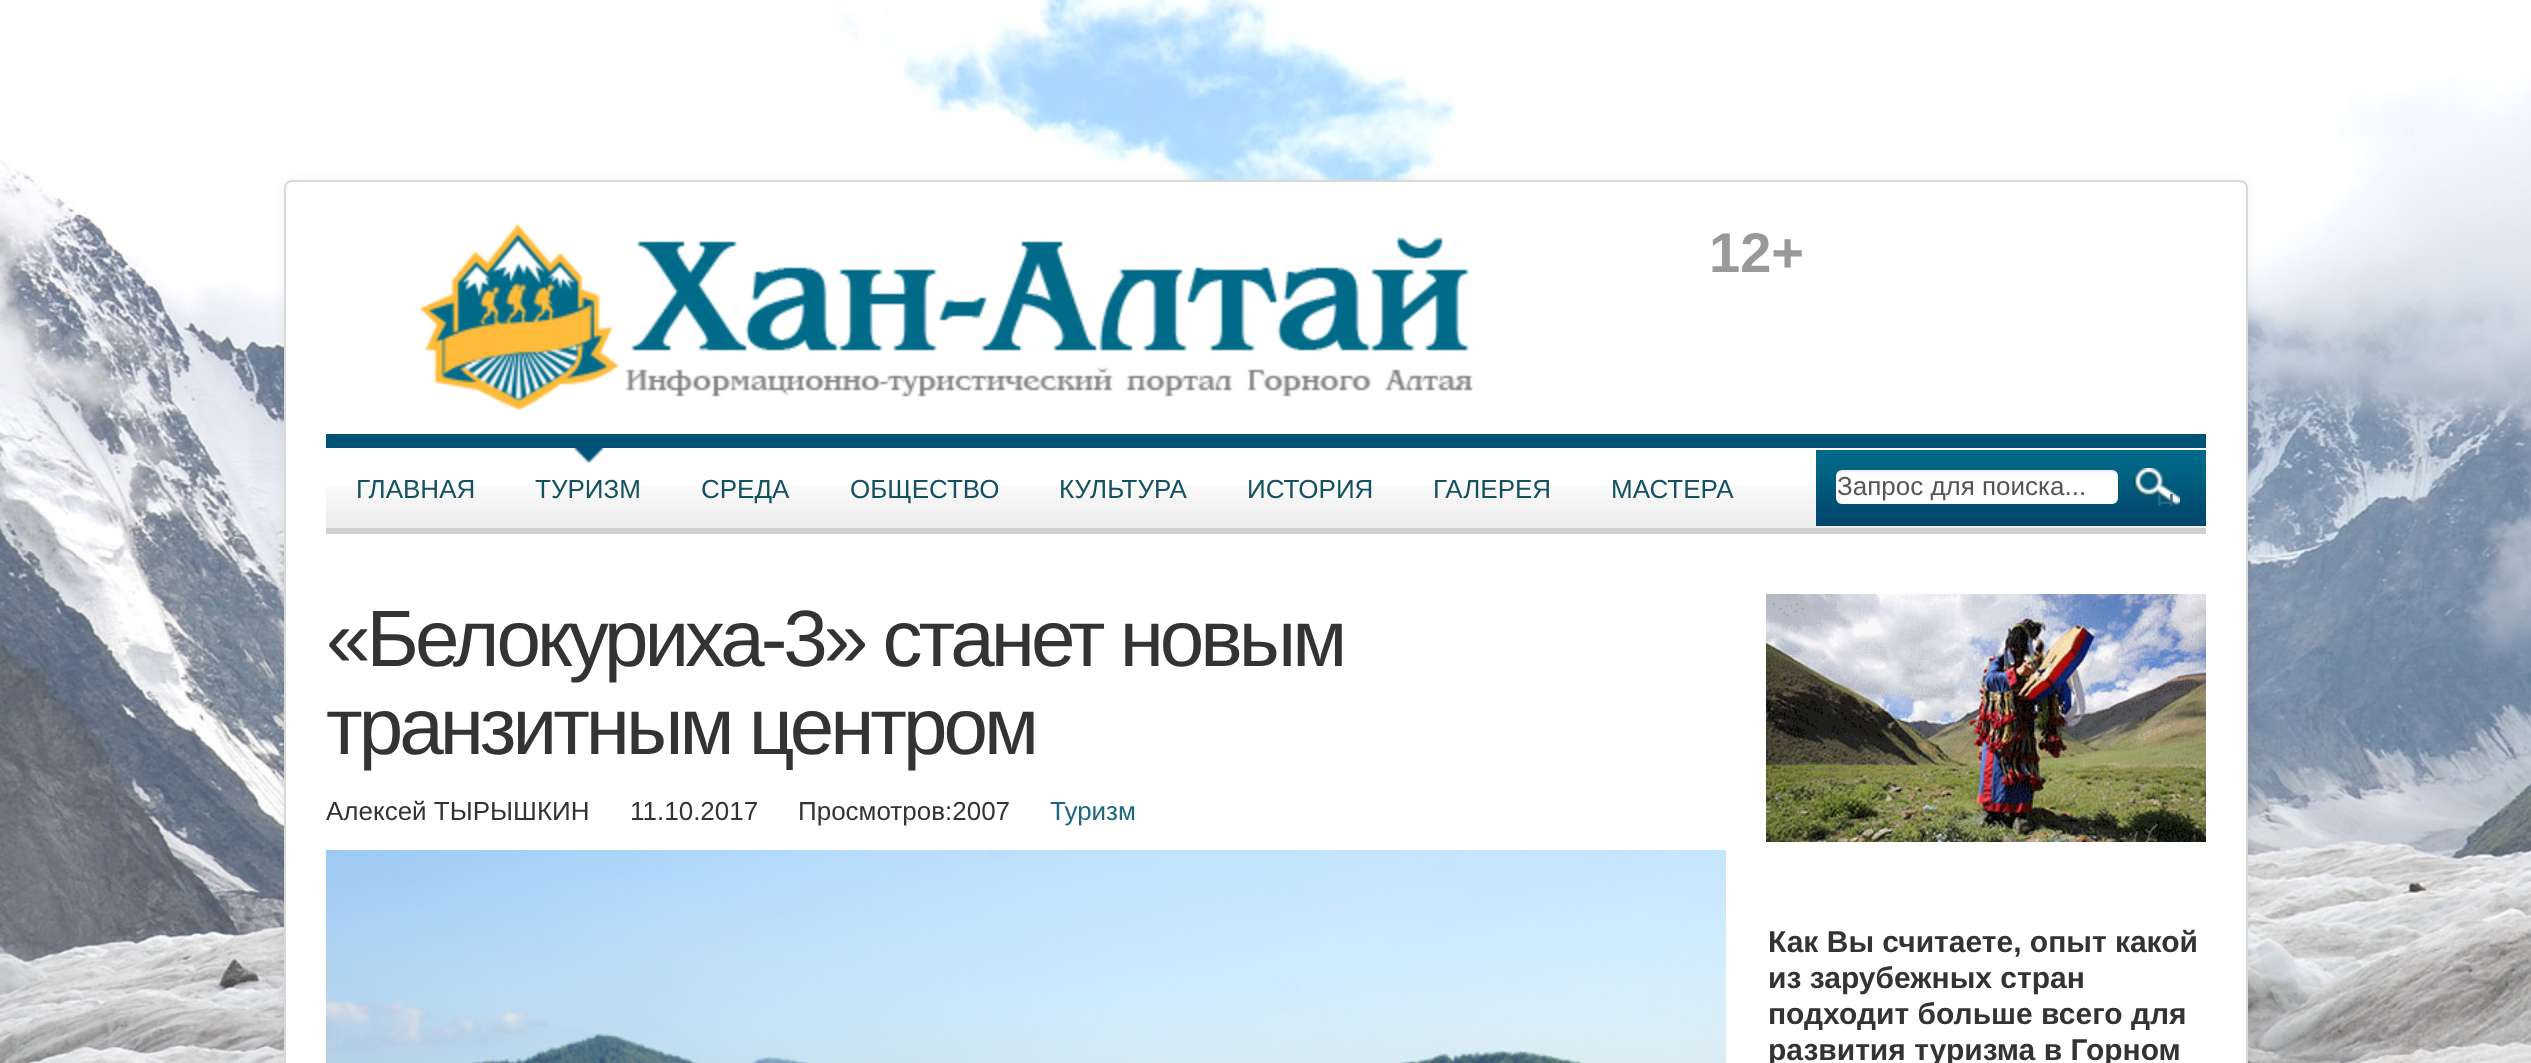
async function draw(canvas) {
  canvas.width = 2531
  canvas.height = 1063
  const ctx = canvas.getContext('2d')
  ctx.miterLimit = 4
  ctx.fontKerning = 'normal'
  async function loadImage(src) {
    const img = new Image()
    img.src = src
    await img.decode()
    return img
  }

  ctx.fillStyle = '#fff'
  ctx.fillRect(0, 0, 2531, 1063)
  ctx.drawImage(await loadImage('image0.png'), 0, 0, 2531, 1063)
  ctx.fillStyle = '#0000000d'
  ctx.filter = 'blur(6px)'
  ctx.beginPath()
  ctx.roundRect(284, 180, 1964, 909, 8)
  ctx.fill()
  ctx.filter = 'none'
  ctx.fillStyle = '#fff'
  ctx.beginPath()
  ctx.roundRect(285, 181, 1962, 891, 7)
  ctx.fill()
  ctx.strokeStyle = '#d9d9d9'
  ctx.lineWidth = 2
  ctx.stroke()
  ctx.drawImage(await loadImage('image1.png'), 419, 223, 1054, 188)
  ctx.font = 'bold 56px Liberation Sans'
  ctx.fillStyle = '#999'
  ctx.fillText('12+', 1709, 272)
  ctx.drawImage(await loadImage('image2.png'), 326, 485, 1880, 43)
  ctx.fillStyle = '#005375'
  ctx.fillRect(326, 434, 1880, 14)
  ctx.fillStyle = '#cfcfcf'
  ctx.fillRect(326, 528, 1880, 6)
  ctx.font = '26px Liberation Sans'
  ctx.fillStyle = '#135161'
  ctx.fillText('ГЛАВНАЯ', 356, 498)
  ctx.drawImage(await loadImage('image3.png'), 574, 448, 30, 16)
  ctx.fillText('ТУРИЗМ', 535, 498)
  ctx.fillText('СРЕДА', 701, 498)
  ctx.fillText('ОБЩЕСТВО', 850, 498)
  ctx.fillText('КУЛЬТУРА', 1059, 498)
  ctx.fillText('ИСТОРИЯ', 1247, 498)
  ctx.fillText('ГАЛЕРЕЯ', 1433, 498)
  ctx.fillText('МАСТЕРА', 1611, 498)
  ctx.drawImage(await loadImage('image4.png'), 1816, 450, 390, 76)
  ctx.fillStyle = '#fff'
  ctx.beginPath()
  ctx.roundRect(1836, 470, 282, 34, 6)
  ctx.fill()
  ctx.fillStyle = '#00000012'
  ctx.beginPath()
  ctx.moveTo(1842, 472)
  ctx.lineTo(2112, 472)
  ctx.bezierCurveTo(2115, 472, 2118, 475, 2118, 478)
  ctx.lineTo(2118, 476)
  ctx.bezierCurveTo(2118, 473, 2115, 470, 2112, 470)
  ctx.lineTo(1842, 470)
  ctx.bezierCurveTo(1839, 470, 1836, 473, 1836, 476)
  ctx.lineTo(1836, 478)
  ctx.bezierCurveTo(1836, 475, 1839, 472, 1842, 472)
  ctx.closePath()
  ctx.fill()
  ctx.fillStyle = '#555'
  ctx.fillText('Запрос для поиска...', 1837, 495)
  ctx.drawImage(await loadImage('image5.png'), 2134, 468, 46, 38)
  ctx.save()
  ctx.beginPath()
  ctx.roundRect(2126, 468, 60, 38, 6)
  ctx.clip()
  ctx.fillStyle = '#296b87'
  ctx.fillText('Н', 2156, 512)
  ctx.restore()
  ctx.letterSpacing = '-4px'
  ctx.font = '80px Liberation Sans'
  ctx.fillStyle = '#333'
  ctx.fillText('«Белокуриха-3» станет новым', 326, 666)
  ctx.fillText('транзитным центром', 326, 754)
  ctx.letterSpacing = '0px'
  ctx.font = '26px Liberation Sans'
  ctx.fillText('Алексей ТЫРЫШКИН', 326, 820)
  ctx.fillText('11.10.2017', 630, 820)
  ctx.fillText('Просмотров:2007', 798, 820)
  ctx.fillStyle = '#1d687c'
  ctx.fillText('Туризм', 1050, 820)
  ctx.drawImage(await loadImage('image6.png'), 326, 850, 1400, 213)
  ctx.drawImage(await loadImage('image7.png'), 1766, 594, 440, 248)
  ctx.font = 'bold 30px Liberation Sans'
  ctx.fillStyle = '#333'
  ctx.fillText('Как Вы считаете, опыт какой', 1768, 952)
  ctx.fillText('из зарубежных стран', 1768, 988)
  ctx.fillText('подходит больше всего для', 1768, 1024)
  ctx.fillText('развития туризма в Горном', 1768, 1060)
}

draw(document.querySelector('canvas'))
